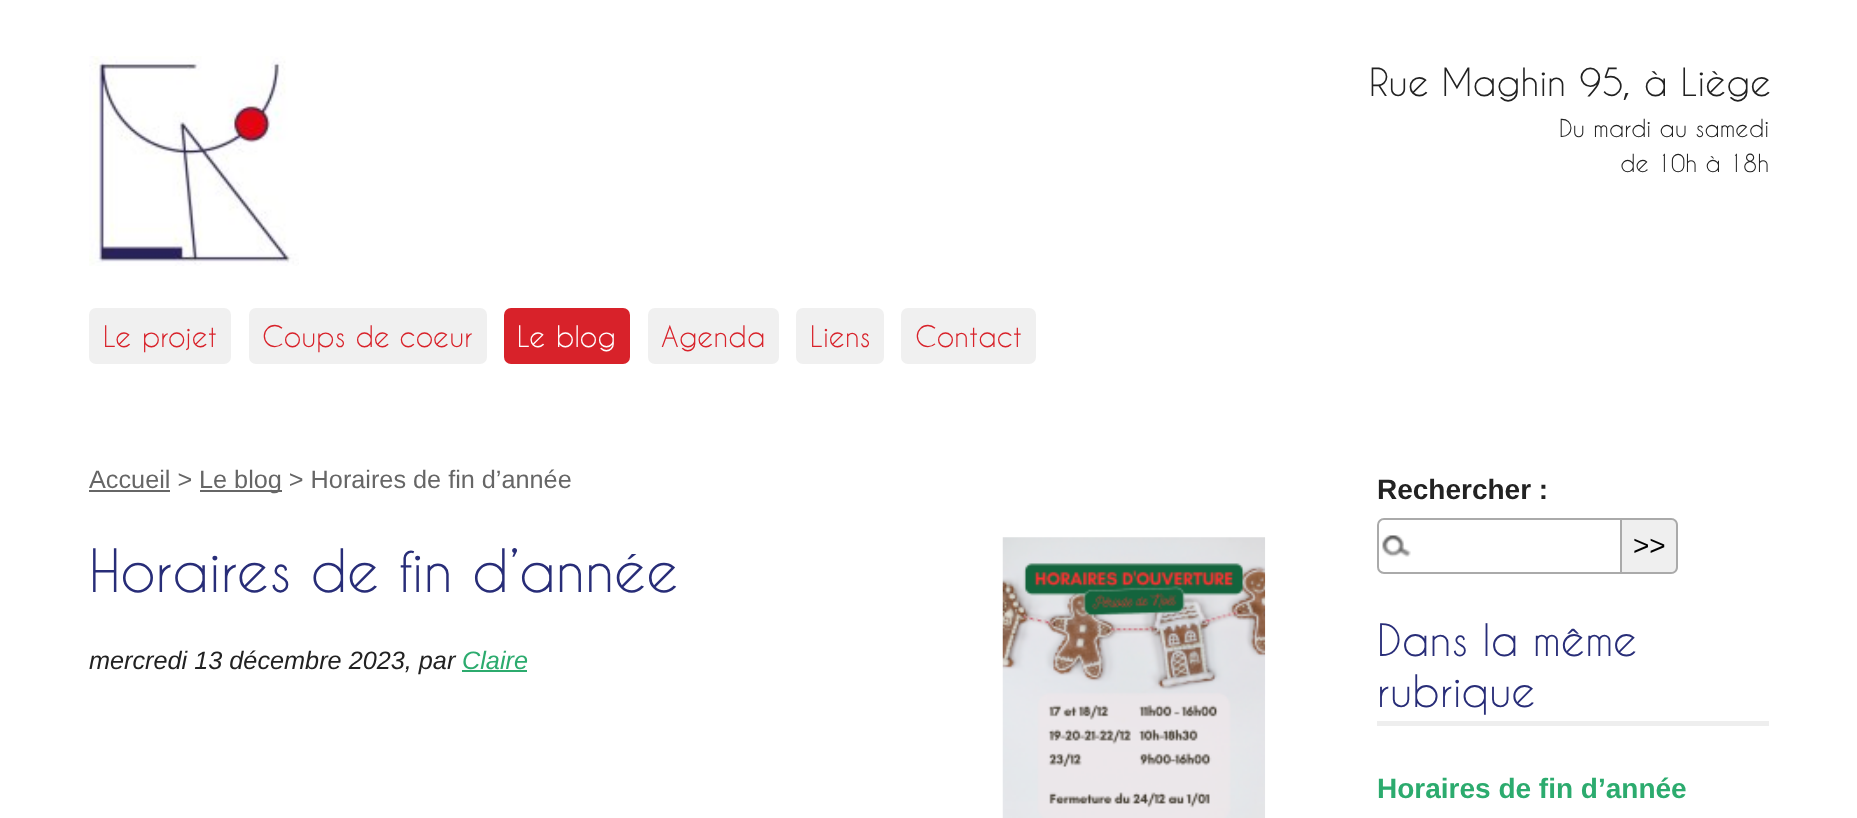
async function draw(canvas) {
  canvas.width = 1857
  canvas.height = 818
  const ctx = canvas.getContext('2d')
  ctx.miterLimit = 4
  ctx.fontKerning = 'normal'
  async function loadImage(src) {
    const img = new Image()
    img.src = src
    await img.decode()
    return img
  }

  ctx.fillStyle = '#fff'
  ctx.fillRect(0, 0, 1857, 818)
  ctx.drawImage(await loadImage('image0.png'), 89, 56, 210, 210)
  ctx.wordSpacing = '0.5px'
  ctx.font = '36.4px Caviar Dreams'
  ctx.fillStyle = '#222'
  ctx.fillText('Rue Maghin 95, à Liège', 1369, 96)
  ctx.wordSpacing = '0px'
  ctx.font = '23.25px Caviar Dreams'
  ctx.fillText('Du mardi au samedi', 1559, 137)
  ctx.fillText('de 10h à 18h', 1620, 172)
  ctx.fillStyle = '#f0f0f0'
  ctx.beginPath()
  ctx.roundRect(89, 308, 142, 56, 7)
  ctx.fill()
  ctx.wordSpacing = '1px'
  ctx.font = '28px Caviar Dreams'
  ctx.fillStyle = '#d8222a'
  ctx.fillText('Le projet', 103, 347)
  ctx.fillStyle = '#f0f0f0'
  ctx.beginPath()
  ctx.roundRect(249, 308, 238, 56, 7)
  ctx.fill()
  ctx.wordSpacing = '0px'
  ctx.fillStyle = '#d8222a'
  ctx.fillText('Coups de coeur', 262, 347)
  ctx.beginPath()
  ctx.roundRect(504, 308, 126, 56, 7)
  ctx.fill()
  ctx.wordSpacing = '1px'
  ctx.fillStyle = '#fff'
  ctx.fillText('Le blog', 517, 347)
  ctx.fillStyle = '#f0f0f0'
  ctx.beginPath()
  ctx.roundRect(648, 308, 131, 56, 7)
  ctx.fill()
  ctx.wordSpacing = '0px'
  ctx.fillStyle = '#d8222a'
  ctx.fillText('Agenda', 661, 347)
  ctx.fillStyle = '#f0f0f0'
  ctx.beginPath()
  ctx.roundRect(796, 308, 88, 56, 7)
  ctx.fill()
  ctx.fillStyle = '#d8222a'
  ctx.fillText('Liens', 810, 347)
  ctx.fillStyle = '#f0f0f0'
  ctx.beginPath()
  ctx.roundRect(901, 308, 135, 56, 7)
  ctx.fill()
  ctx.fillStyle = '#d8222a'
  ctx.fillText('Contact', 915, 347)
  ctx.font = '25.25px Liberation Sans'
  ctx.fillStyle = '#666'
  ctx.fillText('Accueil >', 89, 488)
  ctx.fillRect(89, 490, 81, 2)
  ctx.fillRect(200, 490, 82, 2)
  ctx.fillText('Le blog > Horaires de fin d’année', 199, 488)
  ctx.wordSpacing = '-0.5px'
  ctx.font = '56px Caviar Dreams'
  ctx.fillStyle = '#282d78'
  ctx.fillText('Horaires de fin d’année', 89, 592)
  ctx.drawImage(await loadImage('image1.png'), 1002, 537, 264, 281)
  ctx.wordSpacing = '0px'
  ctx.font = 'italic 25.25px Liberation Sans'
  ctx.fillStyle = '#222'
  ctx.fillText('mercredi 13 décembre 2023, par', 89, 669)
  ctx.fillStyle = '#2cab6e'
  ctx.fillText('Claire', 462, 669)
  ctx.fillRect(462, 670, 65, 2)
  ctx.font = 'bold 28px Liberation Sans'
  ctx.fillStyle = '#222'
  ctx.fillText('Rechercher :', 1377, 499)
  ctx.drawImage(await loadImage('image2.png'), 1382, 535, 29, 22)
  ctx.beginPath()
  ctx.roundRect(1378, 519, 243, 54, [6, 0, 0, 6])
  ctx.strokeStyle = '#aaa'
  ctx.lineWidth = 2
  ctx.stroke()
  ctx.fillStyle = '#efefef'
  ctx.beginPath()
  ctx.roundRect(1622, 518, 56, 56, [0, 7, 7, 0])
  ctx.fill()
  ctx.fillStyle = '#aaa'
  ctx.beginPath()
  ctx.moveTo(1622, 518)
  ctx.lineTo(1671, 518)
  ctx.bezierCurveTo(1675, 518, 1678, 521, 1678, 525)
  ctx.lineTo(1678, 567)
  ctx.bezierCurveTo(1678, 571, 1675, 574, 1671, 574)
  ctx.lineTo(1622, 574)
  ctx.closePath()
  ctx.moveTo(1622, 520)
  ctx.lineTo(1671, 520)
  ctx.bezierCurveTo(1674, 520, 1676, 522, 1676, 525)
  ctx.lineTo(1676, 567)
  ctx.bezierCurveTo(1676, 570, 1674, 572, 1671, 572)
  ctx.lineTo(1622, 572)
  ctx.closePath()
  ctx.fill('evenodd')
  ctx.font = '28px Liberation Sans'
  ctx.fillStyle = '#000'
  ctx.fillText('>>', 1633, 555)
  ctx.fillStyle = '#eee'
  ctx.fillRect(1377, 721, 392, 5)
  ctx.font = '42px Caviar Dreams'
  ctx.fillStyle = '#282d78'
  ctx.fillText('Dans la même', 1377, 656)
  ctx.fillText('rubrique', 1377, 707)
  ctx.font = 'bold 28px Liberation Sans'
  ctx.fillStyle = '#2cab6e'
  ctx.fillText('Horaires de fin d’année', 1377, 798)
}

draw(document.querySelector('canvas'))
